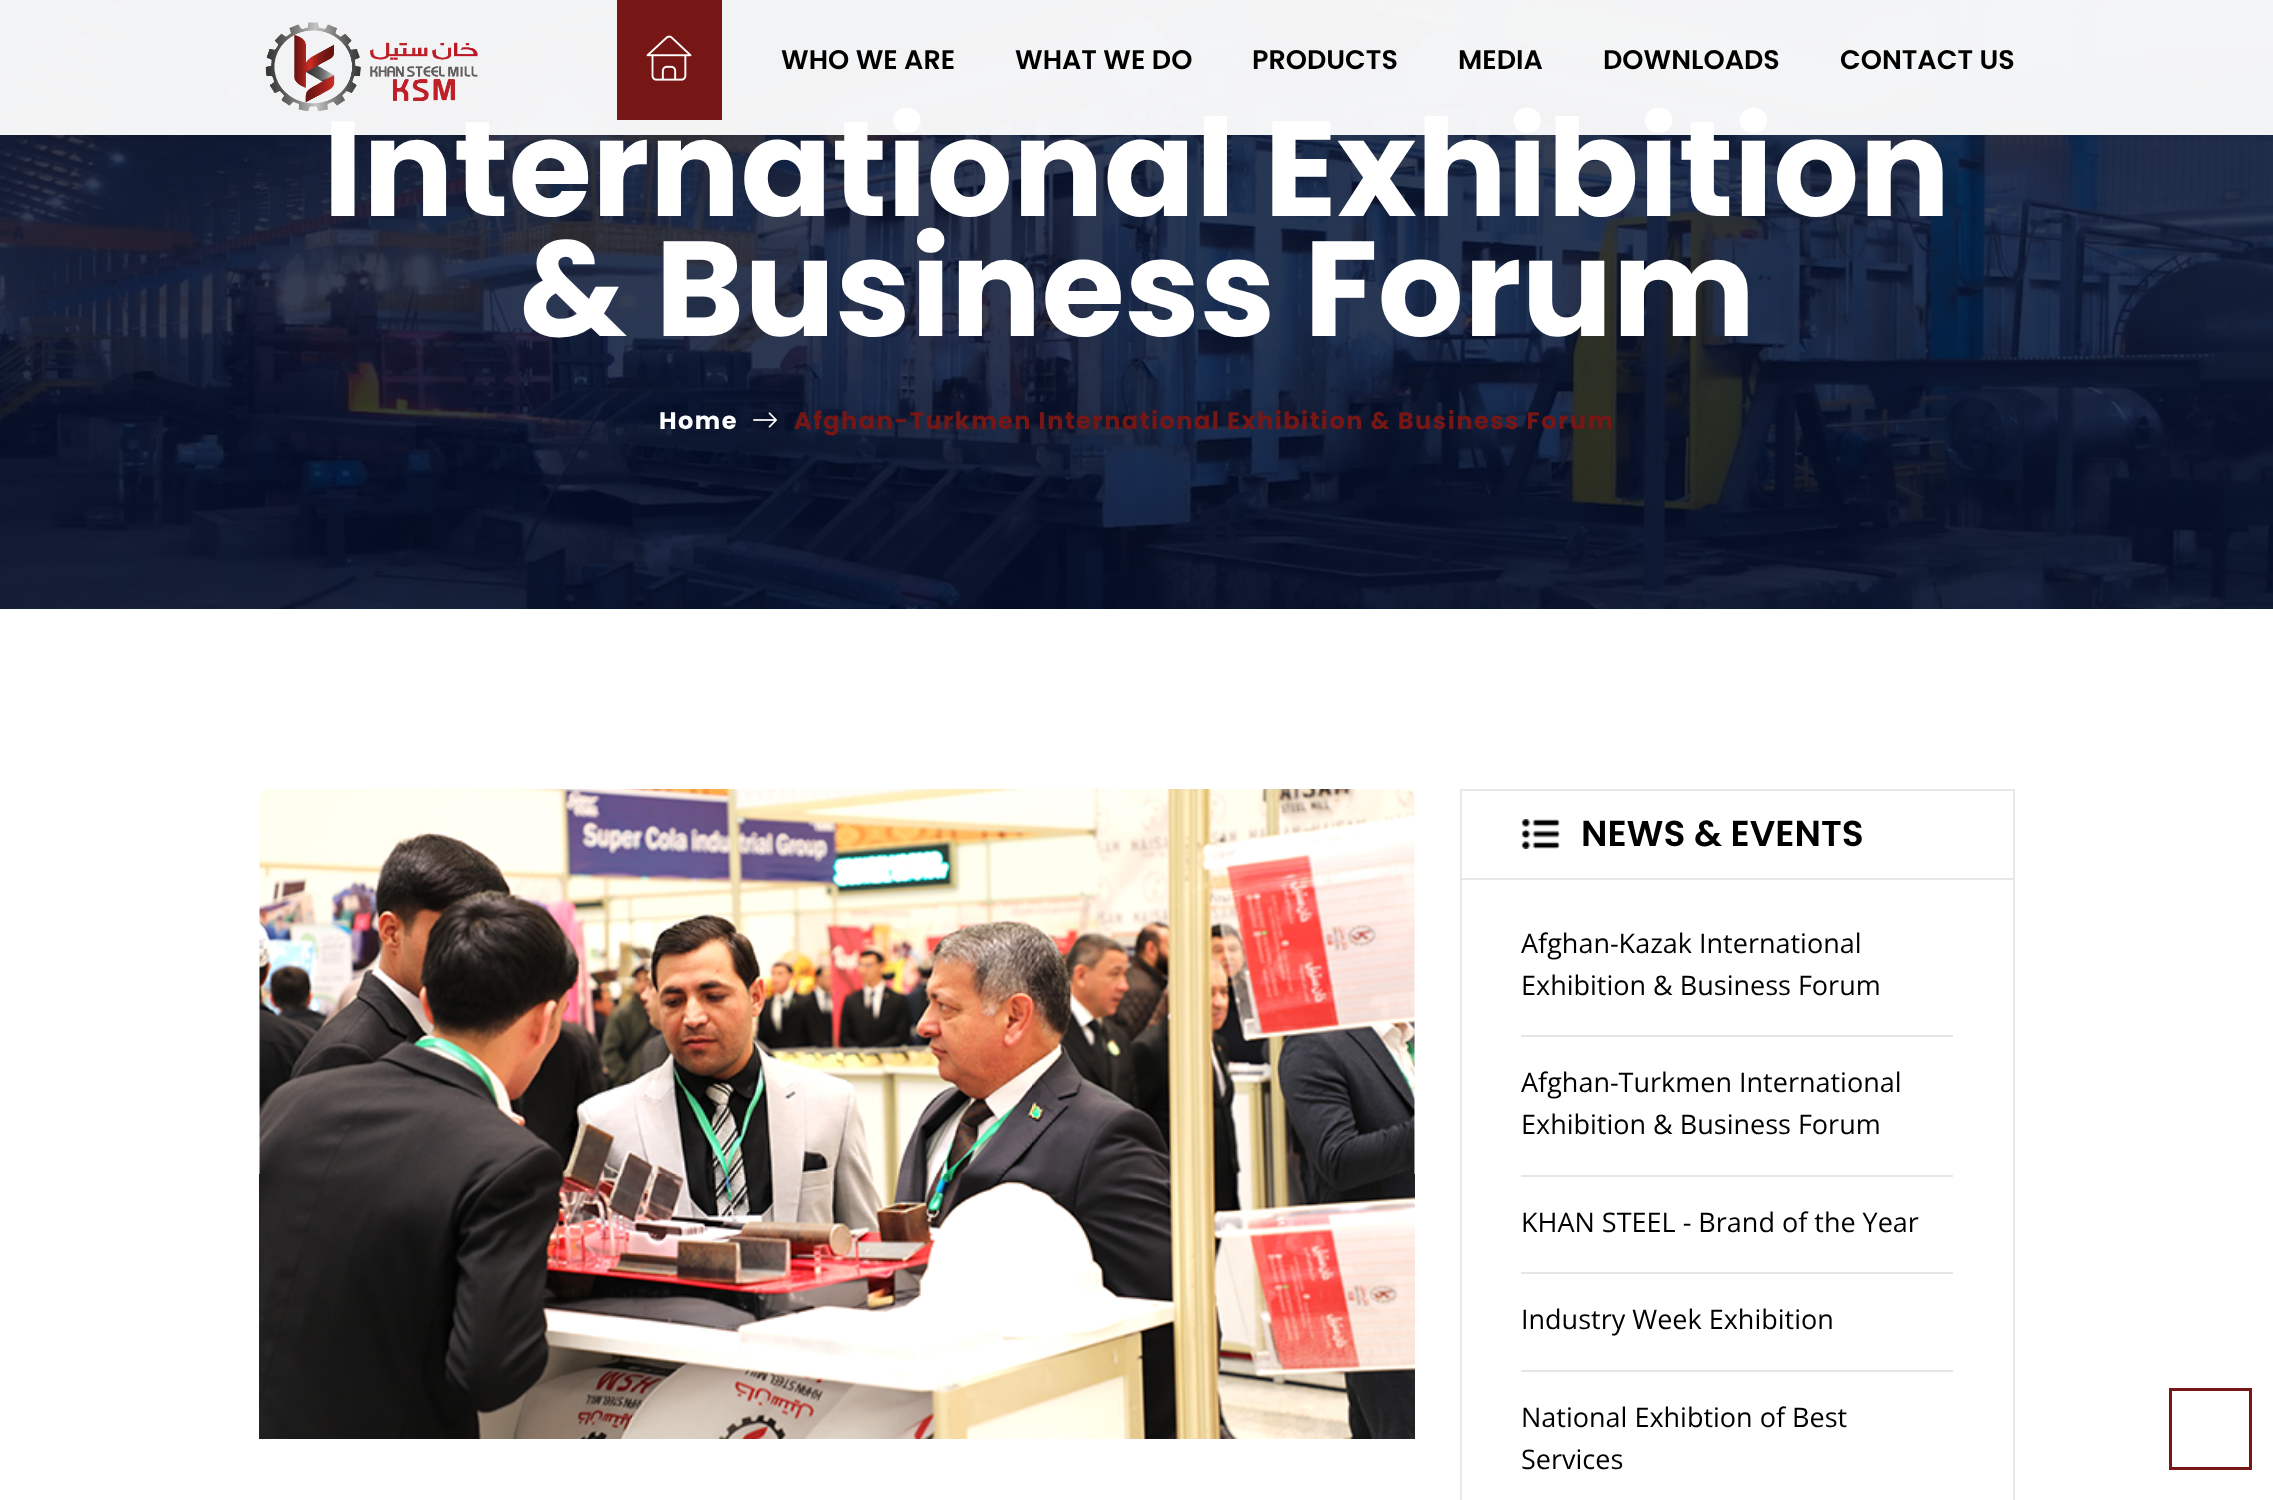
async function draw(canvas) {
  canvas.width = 2273
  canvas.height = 1500
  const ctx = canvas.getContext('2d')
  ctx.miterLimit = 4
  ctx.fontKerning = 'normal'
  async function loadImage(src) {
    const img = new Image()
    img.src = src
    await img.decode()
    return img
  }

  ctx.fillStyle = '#fff'
  ctx.fillRect(0, 0, 2273, 1500)
  ctx.drawImage(await loadImage('image2.png'), 0, 0, 2273, 609)
  ctx.save()
  ctx.beginPath()
  ctx.rect(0, 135, 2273, 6)
  ctx.clip()
  ctx.fillStyle = '#0000001a'
  ctx.filter = 'blur(7.5px)'
  ctx.beginPath()
  ctx.rect(0, 0, 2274, 135)
  ctx.fill()
  ctx.filter = 'none'
  ctx.restore()
  ctx.font = 'bold 135px Poppins'
  ctx.fillText('International Exhibition', 323, 216)
  ctx.fillStyle = '#fffffff2'
  ctx.fillRect(0, 0, 2273, 135)
  ctx.drawImage(await loadImage('image0.png'), 265, 22, 213, 89)
  ctx.fillStyle = '#771715'
  ctx.fillRect(617, 0, 105, 120)
  ctx.drawImage(await loadImage('image1.png'), 646, 35, 46, 46)
  ctx.font = '600 27px Poppins'
  ctx.fillStyle = '#000'
  ctx.fillText('WHO WE ARE', 781, 69)
  ctx.fillText('WHAT WE DO', 1015, 69)
  ctx.fillText('PRODUCTS', 1252, 69)
  ctx.fillText('MEDIA', 1458, 69)
  ctx.fillText('DOWNLOADS', 1603, 69)
  ctx.fillText('CONTACT US', 1840, 69)
  ctx.font = 'bold 135px Poppins'
  ctx.fillStyle = '#fff'
  ctx.fillText('& Business Forum', 519, 336)
  ctx.letterSpacing = '1.5px'
  ctx.font = 'bold 24px Poppins'
  ctx.fillText('Home', 659, 429)
  ctx.drawImage(await loadImage('image3.png'), 753, 412, 24, 16)
  ctx.fillStyle = '#771715'
  ctx.fillText('Afghan-Turkmen International Exhibition & Business Forum', 794, 429)
  ctx.drawImage(await loadImage('image4.png'), 259, 789, 1156, 650)
  ctx.strokeStyle = '#e8e8e8'
  ctx.lineWidth = 2
  ctx.strokeRect(1461, 790, 553, 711)
  ctx.fillStyle = '#e8e8e8'
  ctx.fillRect(1461, 878, 552, 2)
  ctx.drawImage(await loadImage('image5.png'), 1521, 819, 39, 30)
  ctx.letterSpacing = '0px'
  ctx.font = '600 36px Poppins'
  ctx.fillStyle = '#000'
  ctx.fillText('NEWS & EVENTS', 1581, 846)
  ctx.font = '27px Open Sans'
  ctx.fillText('Afghan-Kazak International', 1521, 953)
  ctx.fillText('Exhibition & Business Forum', 1521, 995)
  ctx.fillStyle = '#e6e6e6'
  ctx.fillRect(1521, 1035, 432, 2)
  ctx.fillStyle = '#000'
  ctx.fillText('Afghan-Turkmen International', 1521, 1092)
  ctx.fillText('Exhibition & Business Forum', 1521, 1134)
  ctx.fillStyle = '#e6e6e6'
  ctx.fillRect(1521, 1175, 432, 2)
  ctx.fillStyle = '#000'
  ctx.fillText('KHAN STEEL - Brand of the Year', 1521, 1232)
  ctx.fillStyle = '#e6e6e6'
  ctx.fillRect(1521, 1272, 432, 2)
  ctx.fillStyle = '#000'
  ctx.fillText('Industry Week Exhibition', 1521, 1329)
  ctx.fillStyle = '#e6e6e6'
  ctx.fillRect(1521, 1370, 432, 2)
  ctx.fillStyle = '#000'
  ctx.fillText('National Exhibtion of Best', 1521, 1427)
  ctx.fillText('Services', 1521, 1469)
  ctx.strokeStyle = '#771715'
  ctx.lineWidth = 3
  ctx.strokeRect(2170.5, 1389.5, 80, 79)
}

draw(document.querySelector('canvas'))
